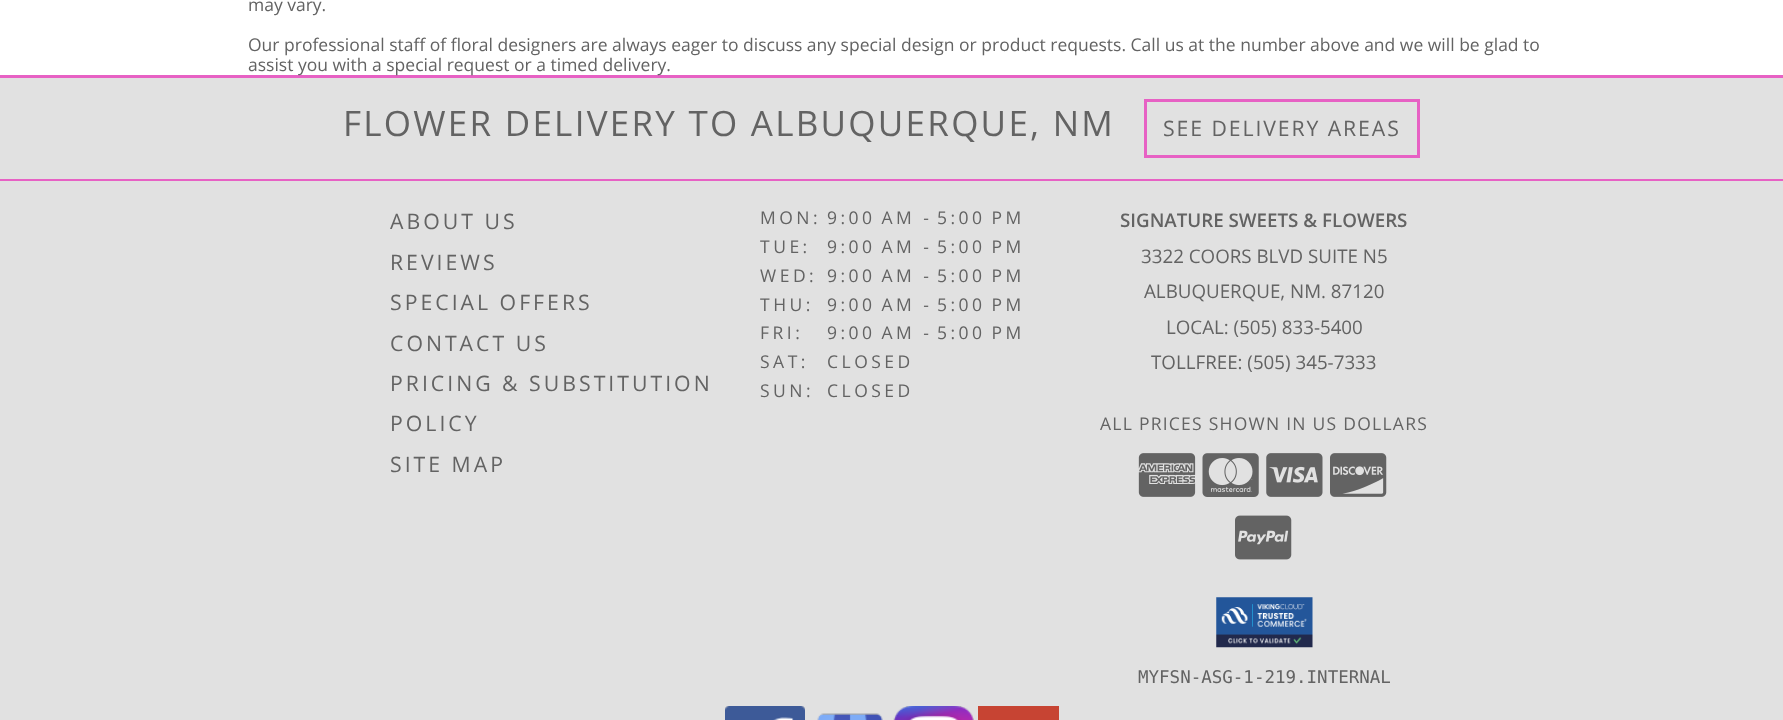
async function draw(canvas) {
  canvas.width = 1783
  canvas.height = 720
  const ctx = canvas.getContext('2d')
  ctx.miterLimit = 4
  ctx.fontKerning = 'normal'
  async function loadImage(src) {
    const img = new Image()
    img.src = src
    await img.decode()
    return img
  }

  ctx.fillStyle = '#fff'
  ctx.fillRect(0, 0, 1783, 720)
  ctx.font = '17.5px Open Sans'
  ctx.fillStyle = '#636363'
  ctx.fillText('may vary.', 248, 11)
  ctx.fillText('Our professional staff of floral designers are always eager to discuss any special design or product requests. Call us at the number above and we will be glad to', 248, 51)
  ctx.fillStyle = '#e761c4'
  ctx.fillRect(0, 75, 1783, 3)
  ctx.fillStyle = '#636363'
  ctx.fillText('assist you with a special request or a timed delivery.', 248, 71)
  ctx.fillStyle = '#e1e1e1'
  ctx.fillRect(0, 78, 1783, 101)
  ctx.fillStyle = '#e761c4'
  ctx.fillRect(0, 179, 1783, 2)
  ctx.letterSpacing = '2.25px'
  ctx.font = '35px Open Sans'
  ctx.fillStyle = '#636363'
  ctx.fillText('FLOWER DELIVERY TO ALBUQUERQUE, NM', 343, 136)
  ctx.strokeStyle = '#e761c4'
  ctx.lineWidth = 3
  ctx.strokeRect(1145.5, 100.5, 273, 56)
  ctx.letterSpacing = '1.9px'
  ctx.font = '21.25px Open Sans'
  ctx.fillText('SEE DELIVERY AREAS', 1163, 136)
  ctx.fillStyle = '#e1e1e1'
  ctx.fillRect(0, 181, 1783, 539)
  ctx.letterSpacing = '3px'
  ctx.fillStyle = '#636363'
  ctx.fillText('ABOUT US', 390, 229)
  ctx.fillText('REVIEWS', 390, 270)
  ctx.fillText('SPECIAL OFFERS', 390, 310)
  ctx.fillText('CONTACT US', 390, 351)
  ctx.fillText('PRICING & SUBSTITUTION', 390, 391)
  ctx.fillText('POLICY', 390, 431)
  ctx.fillText('SITE MAP', 390, 472)
  ctx.letterSpacing = '3.5px'
  ctx.font = '17.5px Open Sans'
  ctx.fillText('MON:', 760, 224)
  ctx.fillText('9:00 AM -', 827, 224)
  ctx.fillText('5:00 PM', 937, 224)
  ctx.fillText('TUE:', 760, 253)
  ctx.fillText('9:00 AM -', 827, 253)
  ctx.fillText('5:00 PM', 937, 253)
  ctx.fillText('WED:', 760, 282)
  ctx.fillText('9:00 AM -', 827, 282)
  ctx.fillText('5:00 PM', 937, 282)
  ctx.fillText('THU:', 760, 311)
  ctx.fillText('9:00 AM -', 827, 311)
  ctx.fillText('5:00 PM', 937, 311)
  ctx.fillText('FRI:', 760, 339)
  ctx.fillText('9:00 AM -', 827, 339)
  ctx.fillText('5:00 PM', 937, 339)
  ctx.fillText('SAT:', 760, 368)
  ctx.fillText('CLOSED', 827, 368)
  ctx.fillText('SUN:', 760, 397)
  ctx.fillText('CLOSED', 827, 397)
  ctx.letterSpacing = '0px'
  ctx.font = '600 18.75px Open Sans'
  ctx.fillText('SIGNATURE SWEETS & FLOWERS', 1120, 227)
  ctx.font = '18.75px Open Sans'
  ctx.fillText('3322 COORS BLVD SUITE N5', 1141, 263)
  ctx.fillText('ALBUQUERQUE, NM. 87120', 1144, 298)
  ctx.fillText('LOCAL: (505) 833-5400', 1166, 334)
  ctx.fillText('TOLLFREE: (505) 345-7333', 1151, 369)
  ctx.letterSpacing = '1.25px'
  ctx.font = '17.5px Open Sans'
  ctx.fillText('ALL PRICES SHOWN IN US DOLLARS', 1100, 430)
  ctx.drawImage(await loadImage('image0.png'), 1138, 453, 58, 44)
  ctx.drawImage(await loadImage('image1.png'), 1202, 453, 57, 44)
  ctx.drawImage(await loadImage('image2.png'), 1266, 453, 57, 44)
  ctx.drawImage(await loadImage('image3.png'), 1330, 453, 57, 44)
  ctx.drawImage(await loadImage('image4.png'), 1235, 515, 57, 45)
  ctx.drawImage(await loadImage('image5.png'), 1216, 597, 97, 51)
  ctx.letterSpacing = '0px'
  ctx.font = '17.5px DejaVu Sans Mono'
  ctx.fillText('MYFSN-ASG-1-219.INTERNAL', 1138, 683)
  ctx.drawImage(await loadImage('image6.png'), 725, 706, 80, 14)
  ctx.drawImage(await loadImage('image7.png'), 817, 713, 66, 7)
  ctx.drawImage(await loadImage('image8.png'), 893, 706, 81, 14)
  ctx.fillStyle = '#c74433'
  ctx.fillRect(978, 706, 81, 14)
}

draw(document.querySelector('canvas'))
